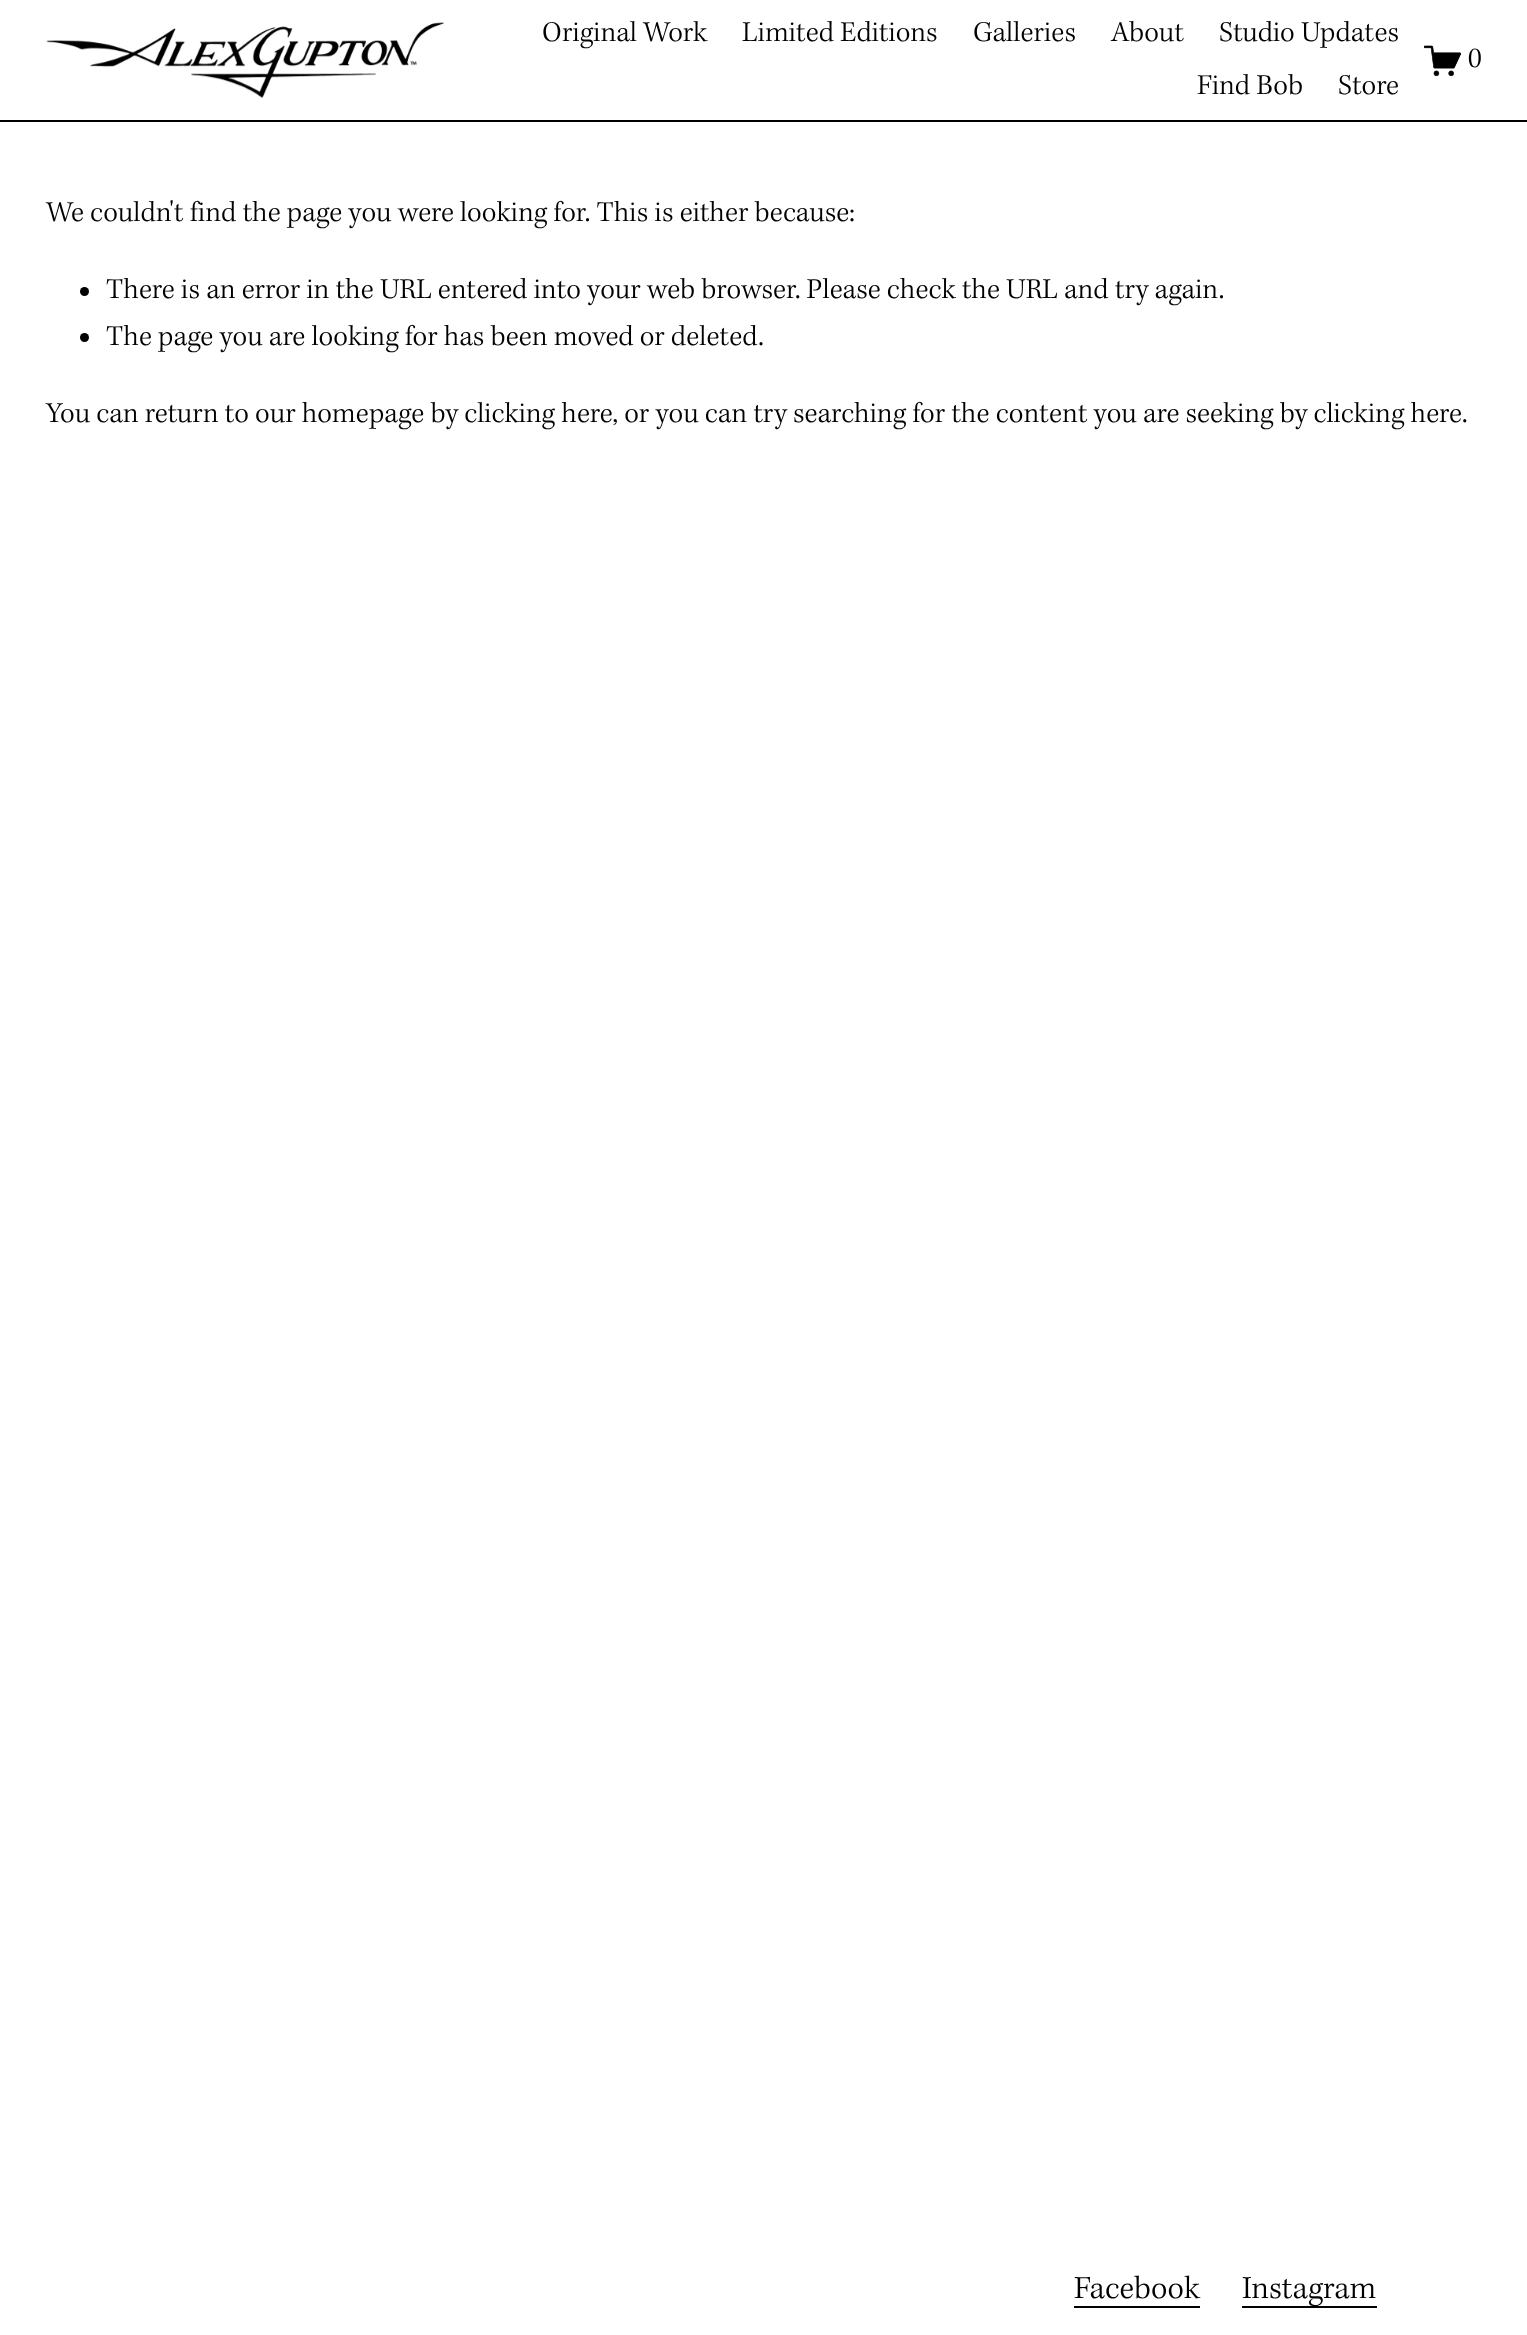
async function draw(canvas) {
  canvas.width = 1527
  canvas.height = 2335
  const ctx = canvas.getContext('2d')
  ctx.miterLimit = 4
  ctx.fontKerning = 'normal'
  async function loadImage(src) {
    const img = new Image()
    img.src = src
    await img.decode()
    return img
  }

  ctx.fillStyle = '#fff'
  ctx.fillRect(0, 0, 1527, 2335)
  ctx.drawImage(await loadImage('image0.png'), 46, 22, 398, 76)
  ctx.font = '300 29.5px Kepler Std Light'
  ctx.fillStyle = '#000'
  ctx.fillText('Original Work', 542, 41)
  ctx.fillText('Limited Editions', 742, 41)
  ctx.fillText('Galleries', 973, 41)
  ctx.fillText('About', 1111, 41)
  ctx.fillText('Studio Updates', 1219, 41)
  ctx.fillText('Find Bob', 1197, 94)
  ctx.fillText('Store', 1338, 94)
  ctx.drawImage(await loadImage('image1.png'), 1424, 45, 37, 32)
  ctx.fillText('0', 1468, 67)
  ctx.fillRect(0, 120, 1527, 2)
  ctx.fillText('We couldn\'t find the page you were looking for. This is either because:', 46, 221)
  ctx.beginPath()
  ctx.arc(84.5, 291.5, 4.5, 0, 2 * Math.PI)
  ctx.fill()
  ctx.fillText('There is an error in the URL entered into your web browser. Please check the URL and try again.', 106, 298)
  ctx.beginPath()
  ctx.arc(84.5, 337.5, 4.5, 0, 2 * Math.PI)
  ctx.fill()
  ctx.fillText('The page you are looking for has been moved or deleted.', 106, 345)
  ctx.fillText('You can return to our homepage by clicking here, or you can try searching for the content you are seeking by clicking here.', 46, 422)
  ctx.font = '300 33px Kepler Std Light'
  ctx.fillText('Facebook', 1074, 2298)
  ctx.fillRect(1074, 2306, 126, 2)
  ctx.fillRect(1242, 2306, 135, 2)
  ctx.fillText('Instagram', 1242, 2298)
}

draw(document.querySelector('canvas'))
